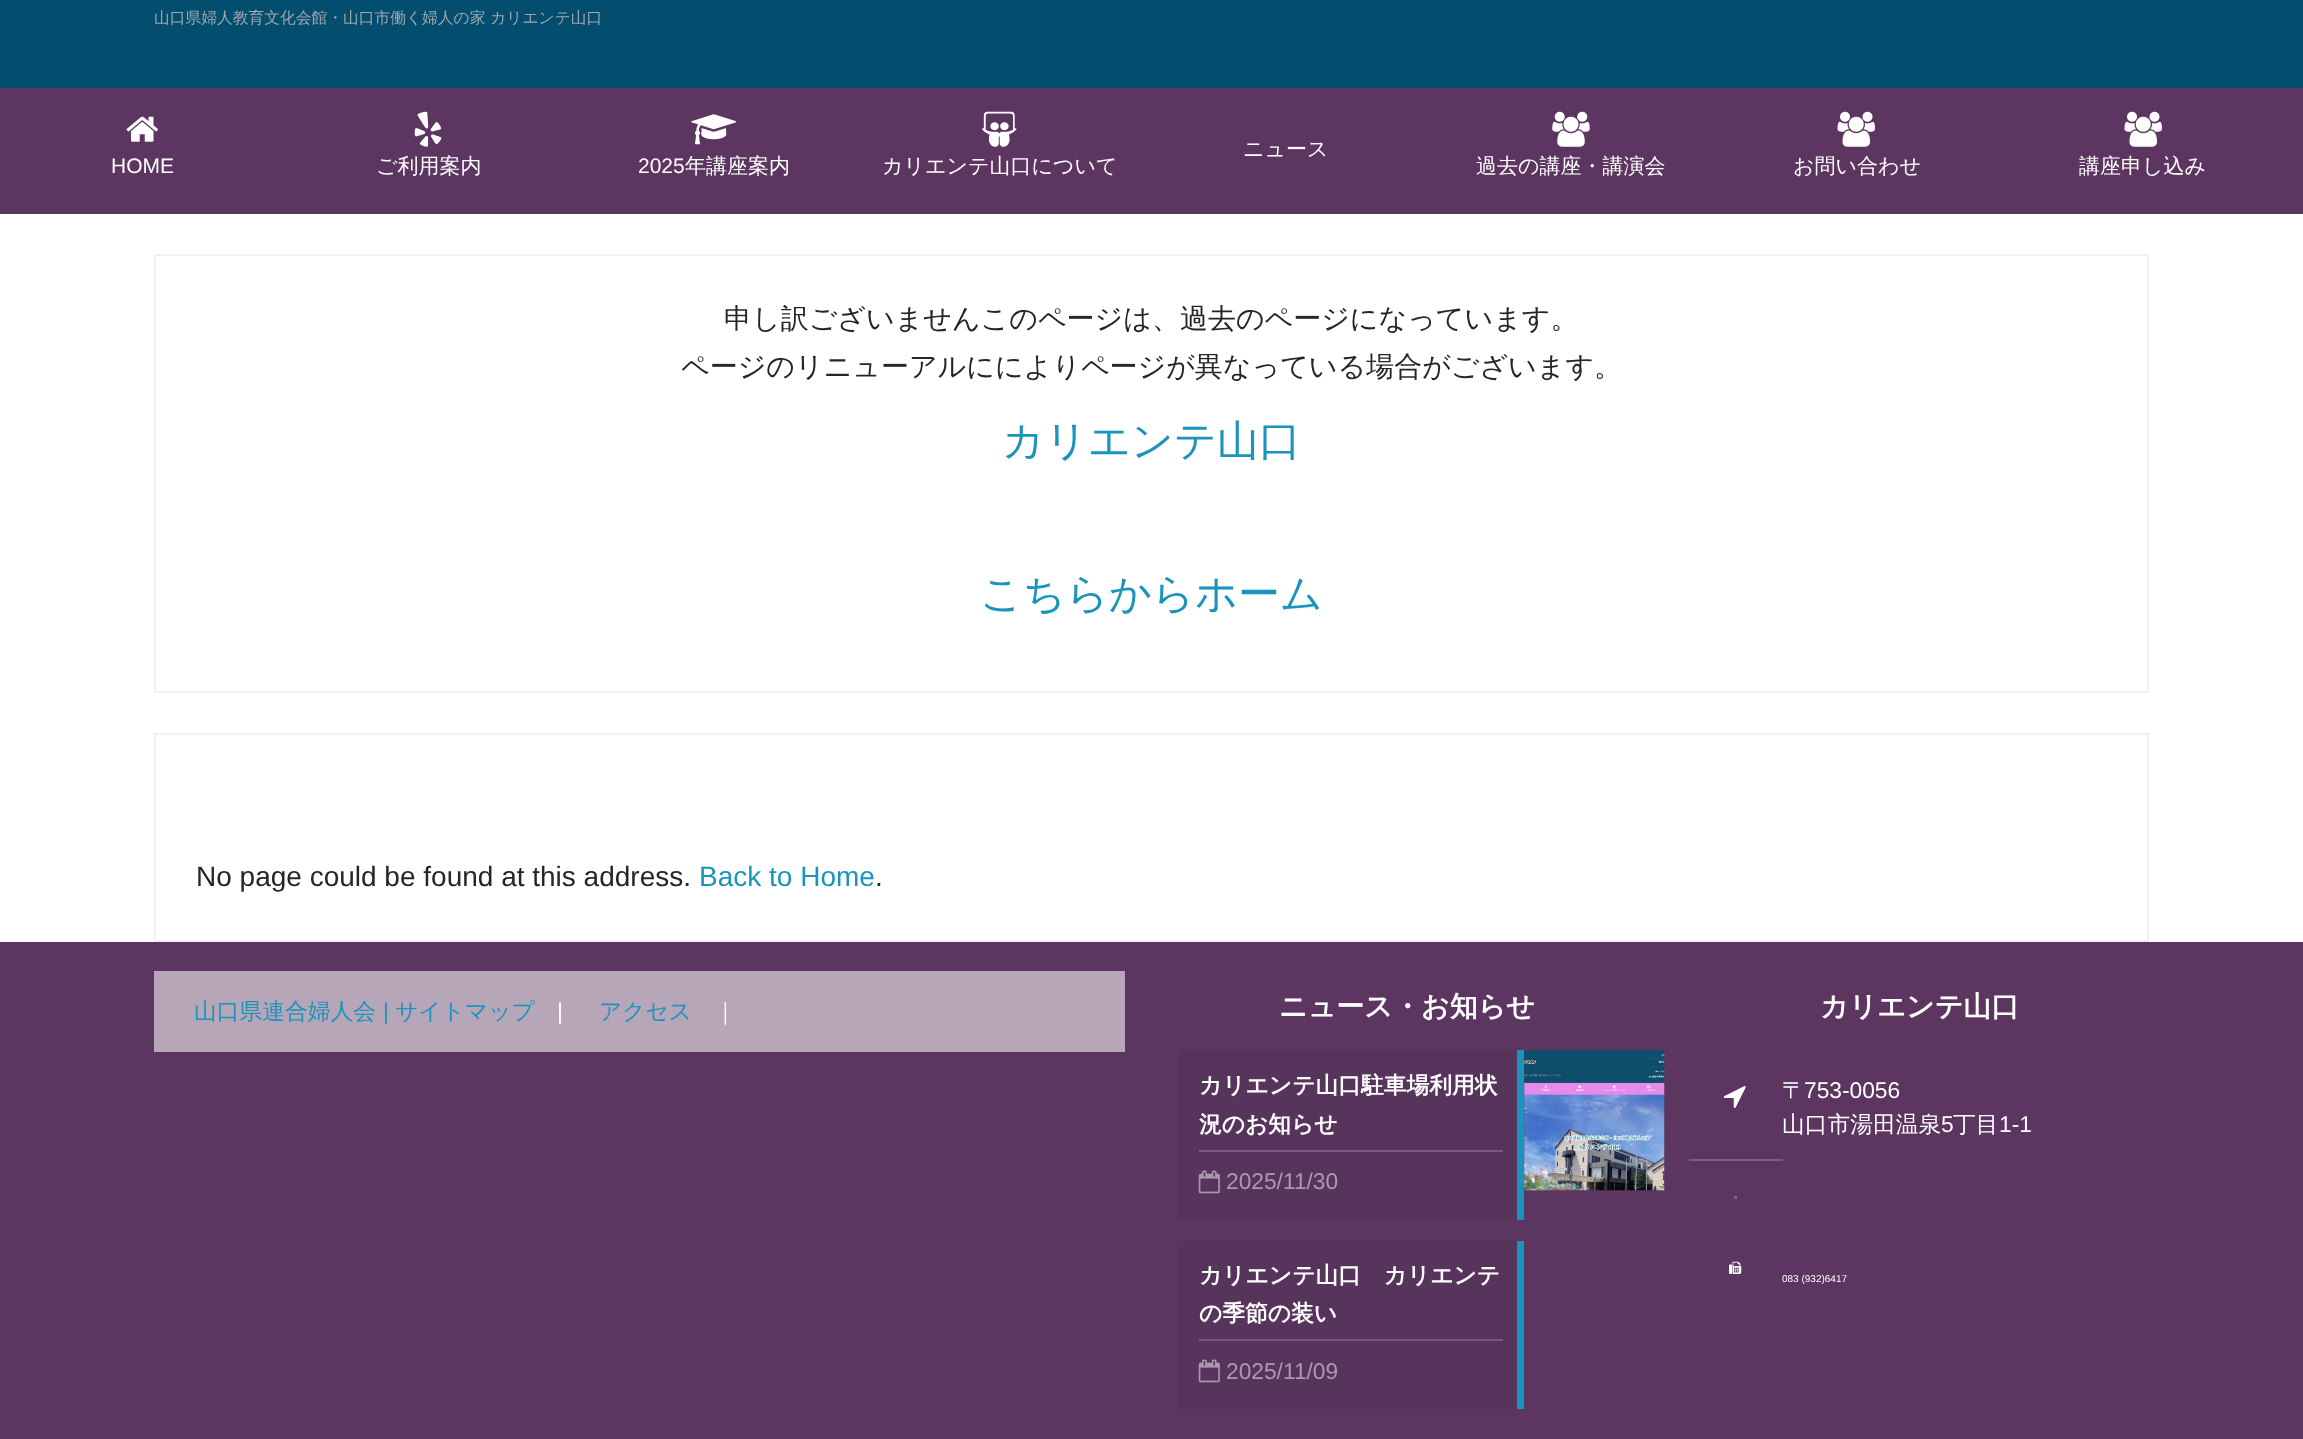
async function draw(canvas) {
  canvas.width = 2303
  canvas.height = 1439
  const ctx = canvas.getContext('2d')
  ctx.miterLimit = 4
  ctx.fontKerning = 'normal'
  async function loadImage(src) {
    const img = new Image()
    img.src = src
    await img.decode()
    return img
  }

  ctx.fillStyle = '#fff'
  ctx.fillRect(0, 0, 2303, 1439)
  ctx.fillStyle = '#034d6e'
  ctx.fillRect(0, 0, 2303, 88)
  ctx.font = '500 15.75px WenQuanYi Zen Hei'
  ctx.fillStyle = '#9ea8ad'
  ctx.fillText('山口県婦人教育文化会館・山口市働く婦人の家 カリエンテ山口', 154, 23)
  ctx.fillStyle = '#5d3561'
  ctx.fillRect(0, 88, 2303, 126)
  ctx.font = '500 21px WenQuanYi Zen Hei'
  ctx.fillStyle = '#fff'
  ctx.fillText('ニュース', 1243, 156)
  ctx.drawImage(await loadImage('image0.png'), 126, 116, 32, 26)
  ctx.font = '21px Liberation Sans'
  ctx.fillText('HOME', 111, 173)
  ctx.drawImage(await loadImage('image1.png'), 414, 111, 28, 36)
  ctx.font = '500 21px WenQuanYi Zen Hei'
  ctx.fillText('ご利用案内', 376, 173)
  ctx.drawImage(await loadImage('image2.png'), 691, 114, 46, 31)
  ctx.font = '21px Liberation Sans'
  ctx.fillText('2025', 638, 173)
  ctx.font = '500 21px WenQuanYi Zen Hei'
  ctx.fillText('年講座案内', 685, 173)
  ctx.drawImage(await loadImage('image3.png'), 982, 111, 35, 36)
  ctx.fillText('カリエンテ山口について', 882, 173)
  ctx.drawImage(await loadImage('image4.png'), 1552, 111, 38, 36)
  ctx.fillText('過去の講座・講演会', 1476, 173)
  ctx.drawImage(await loadImage('image5.png'), 1837, 111, 38, 36)
  ctx.fillText('お問い合わせ', 1793, 173)
  ctx.drawImage(await loadImage('image6.png'), 2124, 111, 38, 36)
  ctx.fillText('講座申し込み', 2079, 173)
  ctx.strokeStyle = '#f2f2f2'
  ctx.lineWidth = 2
  ctx.strokeRect(155, 255, 1993, 437)
  ctx.font = '500 28px WenQuanYi Zen Hei'
  ctx.fillStyle = '#232729'
  ctx.fillText('申し訳ございませんこのページは、過去のページになっています。', 724, 328)
  ctx.fillText('ページのリニューアルにによりページが異なっている場合がございます。', 681, 376)
  ctx.font = '500 42px WenQuanYi Zen Hei'
  ctx.fillStyle = '#1a94bc'
  ctx.fillText('カリエンテ山口', 1002, 455)
  ctx.fillText('こちらからホーム', 980, 608)
  ctx.strokeRect(155, 734, 1993, 207)
  ctx.font = '28px Liberation Sans'
  ctx.fillStyle = '#232729'
  ctx.fillText('No page could be found at this address.', 196, 886)
  ctx.fillStyle = '#1a94bc'
  ctx.fillText('Back to Home', 699, 886)
  ctx.fillStyle = '#232729'
  ctx.fillText('.', 875, 886)
  ctx.fillStyle = '#5d3561'
  ctx.fillRect(0, 942, 2303, 497)
  ctx.fillStyle = '#b6a6b8'
  ctx.fillRect(154, 971, 971, 81)
  ctx.font = '500 22.75px WenQuanYi Zen Hei'
  ctx.fillStyle = '#1a94bc'
  ctx.fillText('山口県連合婦人会', 194, 1019)
  ctx.font = '22.75px Liberation Sans'
  ctx.fillText('|', 383, 1019)
  ctx.font = '500 22.75px WenQuanYi Zen Hei'
  ctx.fillText('サイトマップ', 395, 1019)
  ctx.font = '22.75px Liberation Sans'
  ctx.fillStyle = '#fff'
  ctx.fillText('|', 557, 1019)
  ctx.font = '500 22.75px WenQuanYi Zen Hei'
  ctx.fillStyle = '#1a94bc'
  ctx.fillText('アクセス', 599, 1019)
  ctx.fillStyle = '#fff'
  ctx.fillText('｜', 714, 1019)
  ctx.font = 'bold 28px WenQuanYi Zen Hei'
  ctx.fillText('ニュース・お知らせ', 1279, 1016)
  ctx.fillStyle = '#57345b'
  ctx.fillRect(1178, 1050, 339, 170)
  ctx.fillStyle = '#765a79'
  ctx.fillRect(1199, 1150, 304, 2)
  ctx.font = 'bold 22.75px WenQuanYi Zen Hei'
  ctx.fillStyle = '#fff'
  ctx.fillText('カリエンテ山口駐車場利用状', 1199, 1093)
  ctx.fillText('況のお知らせ', 1199, 1132)
  ctx.fillStyle = '#1a94bc'
  ctx.fillRect(1517, 1050, 7, 170)
  ctx.drawImage(await loadImage('image7.png'), 1198, 1170, 22, 24)
  ctx.font = '22.75px Liberation Sans'
  ctx.fillStyle = '#ab9aad'
  ctx.fillText('2025/11/30', 1226, 1189)
  ctx.drawImage(await loadImage('image8.png'), 1524, 1050, 141, 141)
  ctx.fillStyle = '#57345b'
  ctx.fillRect(1178, 1241, 339, 168)
  ctx.fillStyle = '#765a79'
  ctx.fillRect(1199, 1339, 304, 2)
  ctx.font = 'bold 22.75px WenQuanYi Zen Hei'
  ctx.fillStyle = '#fff'
  ctx.fillText('カリエンテ山口　カリエンテ', 1199, 1283)
  ctx.fillText('の季節の装い', 1199, 1321)
  ctx.fillStyle = '#1a94bc'
  ctx.fillRect(1517, 1241, 7, 168)
  ctx.drawImage(await loadImage('image7.png'), 1198, 1359, 22, 24)
  ctx.font = '22.75px Liberation Sans'
  ctx.fillStyle = '#ab9aad'
  ctx.fillText('2025/11/09', 1226, 1379)
  ctx.font = 'bold 28px WenQuanYi Zen Hei'
  ctx.fillStyle = '#fff'
  ctx.fillText('カリエンテ山口', 1820, 1016)
  ctx.fillStyle = '#7d5d81'
  ctx.fillRect(1689, 1159, 94, 2)
  ctx.drawImage(await loadImage('image9.png'), 1723, 1086, 23, 22)
  ctx.font = '500 22.75px WenQuanYi Zen Hei'
  ctx.fillStyle = '#fff'
  ctx.fillText('〒', 1782, 1098)
  ctx.font = '22.75px Liberation Sans'
  ctx.fillText('753-0056', 1804, 1098)
  ctx.font = '500 22.75px WenQuanYi Zen Hei'
  ctx.fillText('山口市湯田温泉', 1782, 1132)
  ctx.font = '22.75px Liberation Sans'
  ctx.fillText('5', 1941, 1132)
  ctx.font = '500 22.75px WenQuanYi Zen Hei'
  ctx.fillText('丁目', 1953, 1132)
  ctx.font = '22.75px Liberation Sans'
  ctx.fillText('1-1', 1999, 1132)
  ctx.fillStyle = '#826385'
  ctx.fillRect(1734, 1196, 3, 3)
  ctx.drawImage(await loadImage('image10.png'), 1729, 1261, 13, 13)
  ctx.font = '10px Liberation Sans'
  ctx.fillStyle = '#fff'
  ctx.fillText('083 (932)6417', 1782, 1282)
}

draw(document.querySelector('canvas'))
